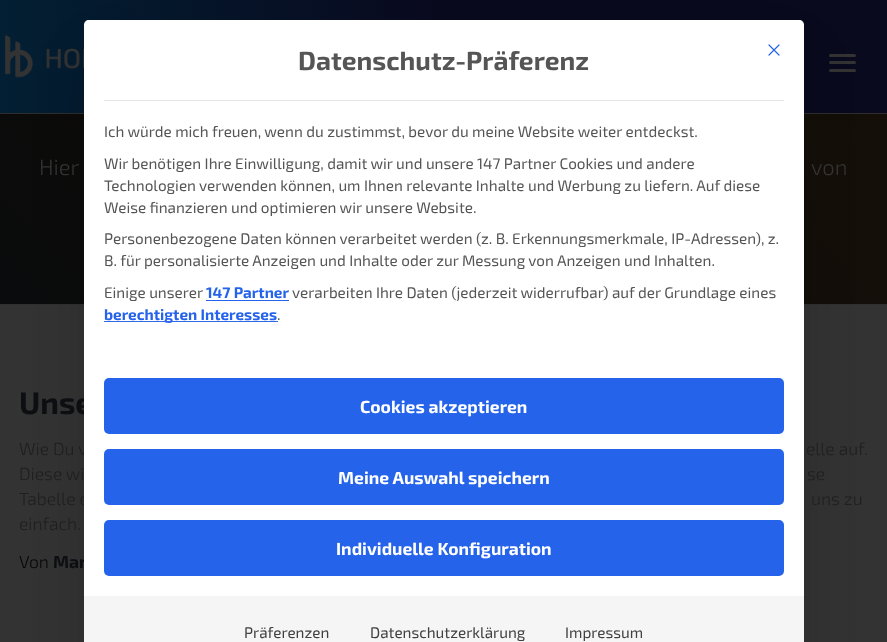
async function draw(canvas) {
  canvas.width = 887
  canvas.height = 642
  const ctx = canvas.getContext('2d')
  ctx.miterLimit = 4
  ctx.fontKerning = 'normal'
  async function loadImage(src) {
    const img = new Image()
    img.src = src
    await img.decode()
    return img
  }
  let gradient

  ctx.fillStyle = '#333'
  ctx.fillRect(0, 0, 887, 642)
  gradient = ctx.createLinearGradient(132, 435, 756, -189)
  gradient.addColorStop(0, '#0a0b0c')
  gradient.addColorStop(1, '#171008')
  ctx.fillStyle = gradient
  ctx.fillRect(0, 114, 887, 190)
  ctx.fillStyle = '#0000006b'
  ctx.filter = 'blur(6px)'
  ctx.beginPath()
  ctx.rect(8, 9, 872, 99)
  ctx.fill()
  ctx.filter = 'none'
  ctx.fillStyle = '#2e2e2e'
  ctx.fillRect(0, 113, 887, 1)
  gradient = ctx.createLinearGradient(0, 56, 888, 56)
  gradient.addColorStop(0, '#031f33')
  gradient.addColorStop(0.5, '#0a0a1f')
  ctx.fillStyle = gradient
  ctx.fillRect(0, 0, 887, 113)
  ctx.drawImage(await loadImage('image0.png'), 4, 35, 80, 43)
  ctx.fillStyle = '#333'
  ctx.beginPath()
  ctx.roundRect(829, 54, 27, 3, 1.5)
  ctx.fill()
  ctx.beginPath()
  ctx.roundRect(829, 61, 27, 3, 1.5)
  ctx.fill()
  ctx.beginPath()
  ctx.roundRect(829, 69, 27, 3, 1.5)
  ctx.fill()
  ctx.fillStyle = '#303030'
  ctx.fillRect(0, 304, 887, 1)
  ctx.fillStyle = '#00000040'
  ctx.filter = 'blur(31px)'
  ctx.beginPath()
  ctx.rect(99, 66, 690, 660)
  ctx.fill()
  ctx.filter = 'none'
  ctx.font = 'bold 31px "Exo 2"'
  ctx.fillStyle = '#0c0e12'
  ctx.fillText('Unse', 19, 414)
  ctx.font = '300 17.5px "Exo 2"'
  ctx.fillStyle = '#1f1f1f'
  ctx.fillText('Wie Du v', 19, 455)
  ctx.fillText('Tabelle e', 19, 505)
  ctx.font = 'bold 17.5px "Exo 2"'
  ctx.fillStyle = '#0c0e12'
  ctx.fillText('Mar', 53, 568)
  ctx.fillStyle = '#fff'
  ctx.beginPath()
  ctx.moveTo(89, 20)
  ctx.lineTo(799, 20)
  ctx.bezierCurveTo(802, 20, 804, 22, 804, 25)
  ctx.lineTo(804, 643)
  ctx.lineTo(84, 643)
  ctx.lineTo(84, 25)
  ctx.bezierCurveTo(84, 22, 86, 20, 89, 20)
  ctx.closePath()
  ctx.fill()
  ctx.beginPath()
  ctx.moveTo(769, 55)
  ctx.lineTo(779, 45)
  ctx.moveTo(769, 45)
  ctx.lineTo(779, 55)
  ctx.strokeStyle = '#2563eb'
  ctx.lineWidth = 1.2
  ctx.lineCap = 'round'
  ctx.lineJoin = 'round'
  ctx.stroke()
  ctx.fillStyle = '#e5e5e5'
  ctx.fillRect(104, 100, 680, 1)
  ctx.font = 'bold 26.25px "Exo 2"'
  ctx.fillStyle = '#555'
  ctx.fillText('Datenschutz-Präferenz', 298, 70)
  ctx.font = '15.3px "Exo 2"'
  ctx.fillText('Ich würde mich freuen, wenn du zustimmst, bevor du meine Website weiter entdeckst.', 104, 137)
  ctx.fillText('Wir benötigen Ihre Einwilligung, damit wir und unsere 147 Partner Cookies und andere', 104, 169)
  ctx.fillText('Technologien verwenden können, um Ihnen relevante Inhalte und Werbung zu liefern. Auf diese', 104, 191)
  ctx.fillText('Weise finanzieren und optimieren wir unsere Website.', 104, 213)
  ctx.fillText('Personenbezogene Daten können verarbeitet werden (z. B. Erkennungsmerkmale, IP-Adressen), z.', 104, 244)
  ctx.fillText('B. für personalisierte Anzeigen und Inhalte oder zur Messung von Anzeigen und Inhalten.', 104, 266)
  ctx.fillText('Einige unserer', 104, 298)
  ctx.font = 'bold 15.3px "Exo 2"'
  ctx.fillStyle = '#2563eb'
  ctx.fillText('147 Partner', 206, 298)
  ctx.fillRect(206, 300, 83, 1)
  ctx.font = '15.3px "Exo 2"'
  ctx.fillStyle = '#555'
  ctx.fillText('verarbeiten Ihre Daten (jederzeit widerrufbar) auf der Grundlage eines', 292, 298)
  ctx.fillStyle = '#2563eb'
  ctx.fillRect(104, 321, 174, 1)
  ctx.font = 'bold 15.3px "Exo 2"'
  ctx.fillText('berechtigten Interesses', 104, 320)
  ctx.font = '15.3px "Exo 2"'
  ctx.fillStyle = '#555'
  ctx.fillText('.', 277, 320)
  gradient = ctx.createLinearGradient(444, 358, 444, 320)
  gradient.addColorStop(0, '#fff')
  gradient.addColorStop(1, '#ffffff00')
  ctx.fillStyle = gradient
  ctx.fillRect(104, 321, 174, 2)
  ctx.fillStyle = '#2563eb'
  ctx.beginPath()
  ctx.roundRect(104, 378, 680, 56, 5)
  ctx.fill()
  ctx.font = 'bold 17.5px "Exo 2"'
  ctx.fillStyle = '#fff'
  ctx.fillText('Cookies akzeptieren', 360, 413)
  ctx.fillStyle = '#2563eb'
  ctx.beginPath()
  ctx.roundRect(104, 449, 680, 56, 5)
  ctx.fill()
  ctx.fillStyle = '#fff'
  ctx.fillText('Meine Auswahl speichern', 338, 484)
  ctx.fillStyle = '#2563eb'
  ctx.beginPath()
  ctx.roundRect(104, 520, 680, 56, 5)
  ctx.fill()
  ctx.fillStyle = '#fff'
  ctx.fillText('Individuelle Konfiguration', 336, 555)
  ctx.fillStyle = '#f5f5f5'
  ctx.fillRect(84, 596, 720, 46)
  ctx.font = '15.3px "Exo 2"'
  ctx.fillStyle = '#404040'
  ctx.fillText('Präferenzen', 244, 638)
  ctx.fillText('Datenschutzerklärung', 370, 638)
  ctx.fillText('Impressum', 565, 638)
  ctx.font = '300 22px "Exo 2"'
  ctx.fillStyle = '#333'
  ctx.fillText('Hier', 39, 175)
  ctx.fillText('von', 811, 175)
  ctx.font = '300 17.5px "Exo 2"'
  ctx.fillStyle = '#1f1f1f'
  ctx.fillText('elle auf.', 806, 455)
  ctx.fillText('Diese wi', 19, 480)
  ctx.fillText('se', 807, 480)
  ctx.fillText('uns zu', 811, 505)
  ctx.fillText('einfach.', 19, 530)
  ctx.fillStyle = '#070707'
  ctx.fillText('Von', 19, 568)
}

draw(document.querySelector('canvas'))
